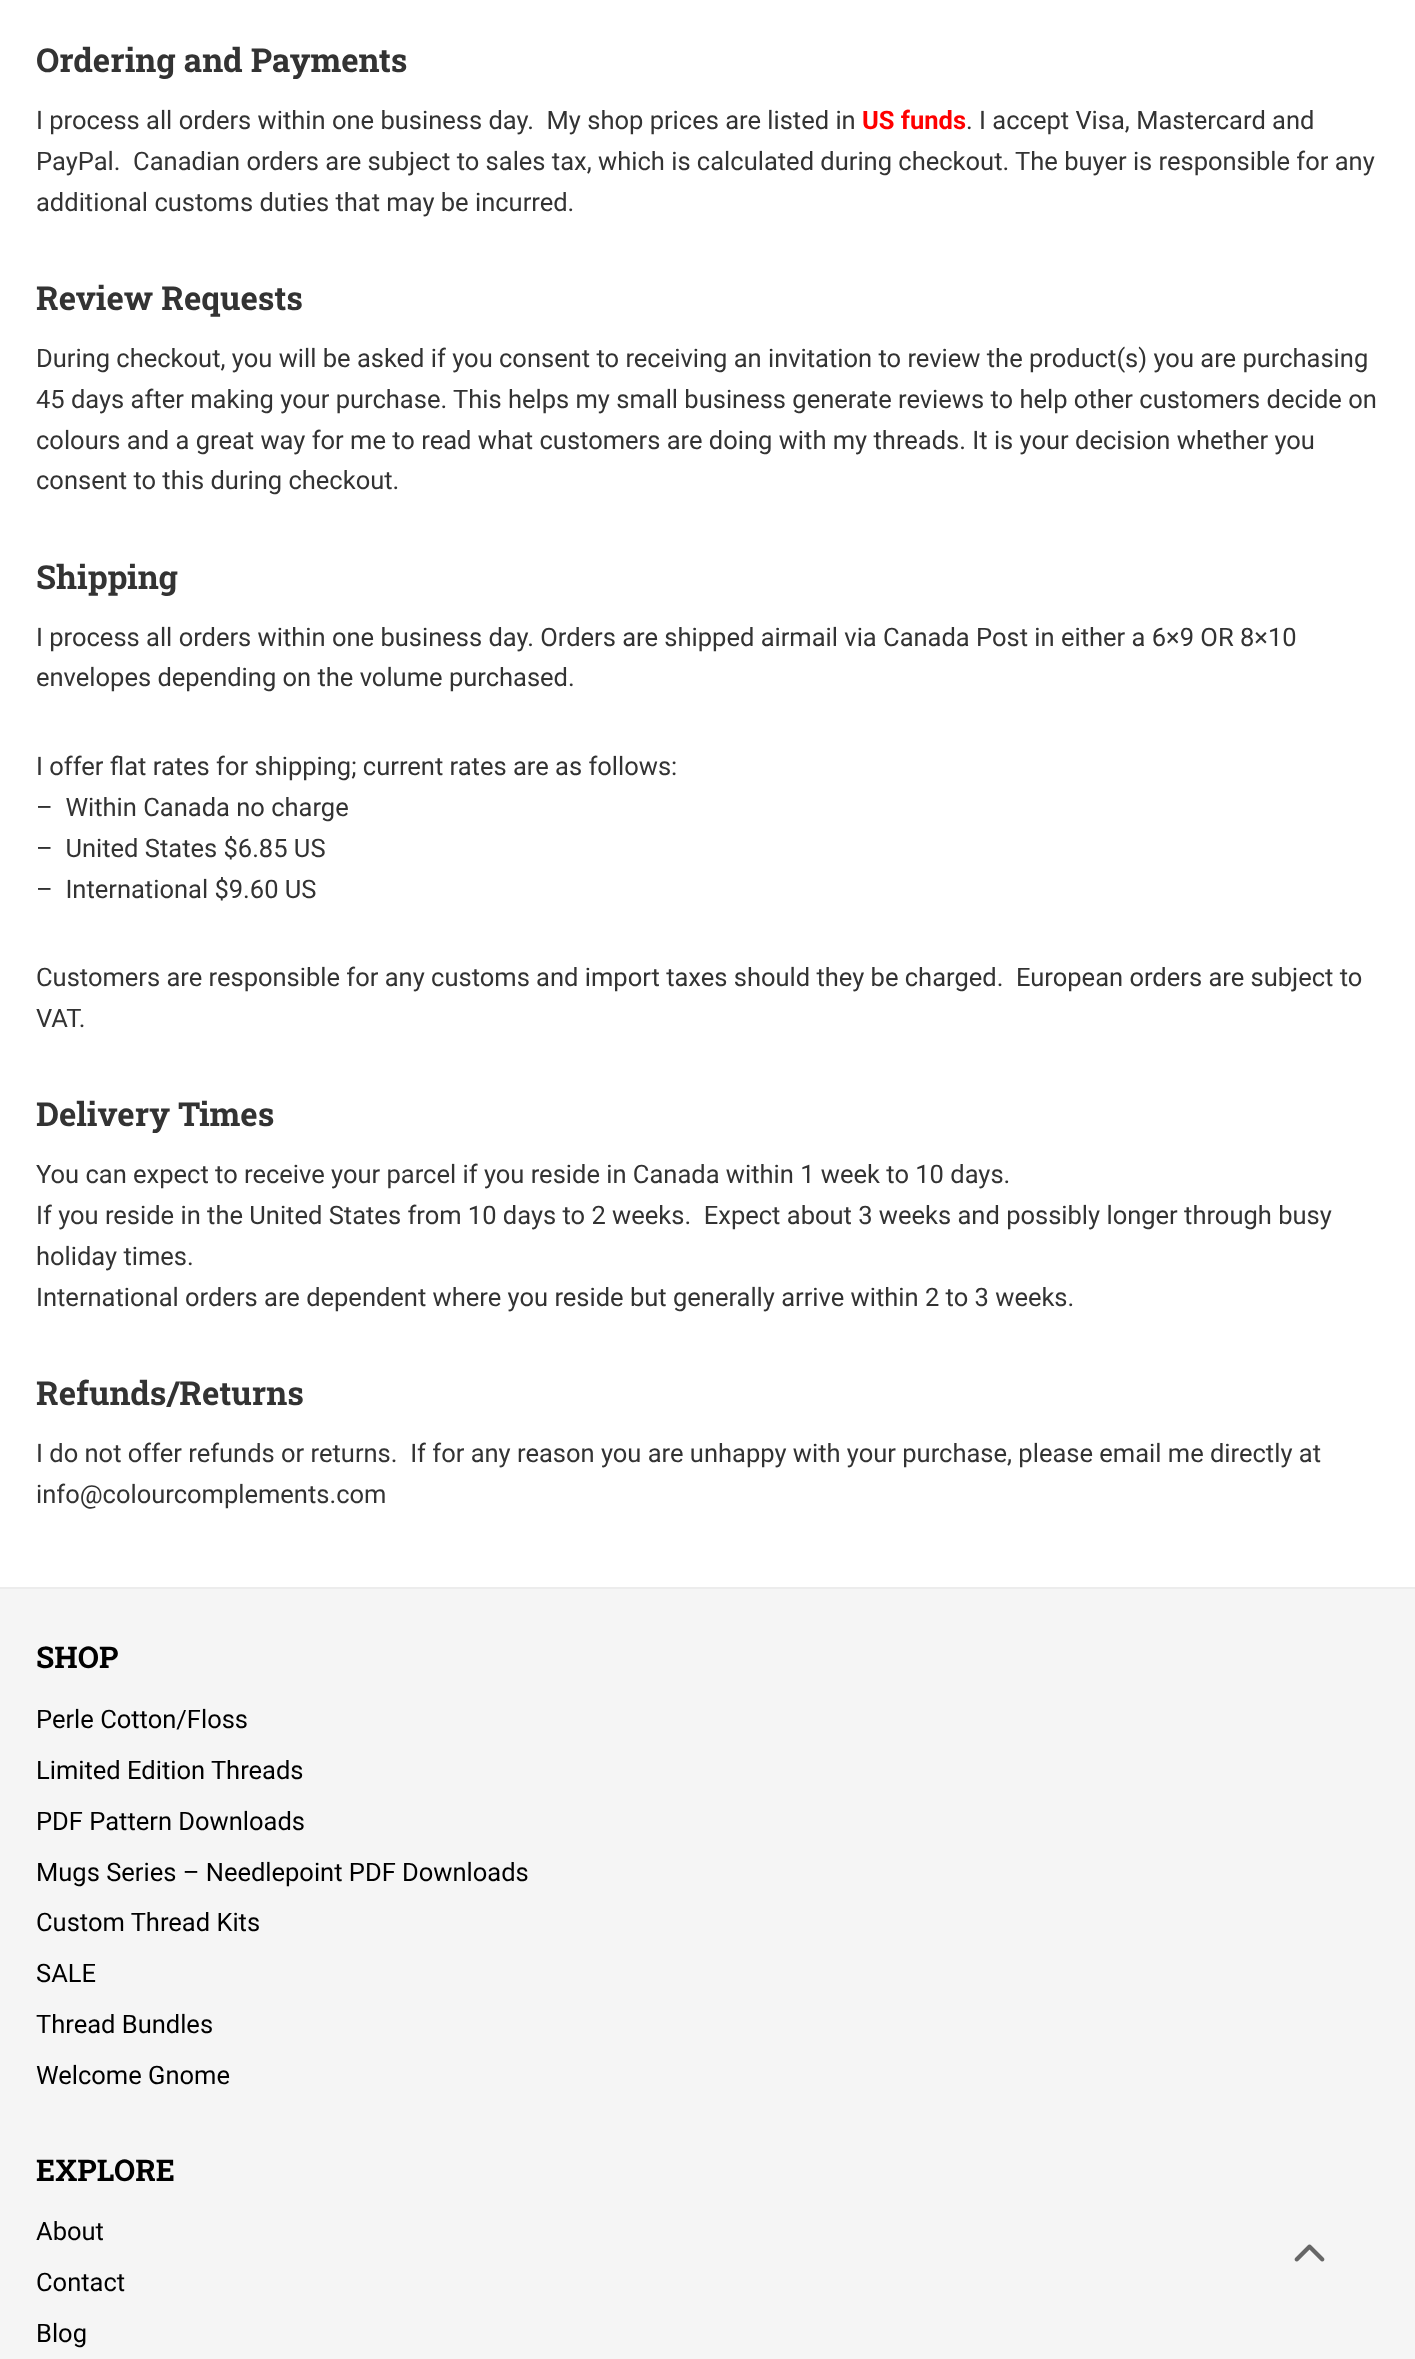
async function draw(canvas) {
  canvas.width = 1415
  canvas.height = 2359
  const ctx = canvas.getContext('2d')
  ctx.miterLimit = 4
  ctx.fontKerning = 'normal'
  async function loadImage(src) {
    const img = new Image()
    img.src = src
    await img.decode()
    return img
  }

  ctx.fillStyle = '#fff'
  ctx.fillRect(0, 0, 1415, 2359)
  ctx.font = 'bold 33px Roboto Slab'
  ctx.fillStyle = '#333'
  ctx.fillText('Ordering and Payments', 36, 72)
  ctx.font = '25.5px Roboto'
  ctx.fillText('I process all orders within one business day.  My shop prices are listed in', 36, 129)
  ctx.font = 'bold 25.5px Roboto'
  ctx.fillStyle = '#f00'
  ctx.fillText('US funds', 862, 129)
  ctx.font = '25.5px Roboto'
  ctx.fillStyle = '#333'
  ctx.fillText('. I accept Visa, Mastercard and', 966, 129)
  ctx.fillText('PayPal.  Canadian orders are subject to sales tax, which is calculated during checkout. The buyer is responsible for any', 36, 170)
  ctx.fillText('additional customs duties that may be incurred.', 36, 211)
  ctx.font = 'bold 33px Roboto Slab'
  ctx.fillText('Review Requests', 36, 310)
  ctx.font = '25.5px Roboto'
  ctx.fillText('During checkout, you will be asked if you consent to receiving an invitation to review the product(s) you are purchasing', 36, 367)
  ctx.fillText('45 days after making your purchase. This helps my small business generate reviews to help other customers decide on', 36, 408)
  ctx.fillText('colours and a great way for me to read what customers are doing with my threads. It is your decision whether you', 36, 449)
  ctx.fillText('consent to this during checkout.', 36, 489)
  ctx.font = 'bold 33px Roboto Slab'
  ctx.fillText('Shipping', 36, 589)
  ctx.font = '25.5px Roboto'
  ctx.fillText('I process all orders within one business day. Orders are shipped airmail via Canada Post in either a 6×9 OR 8×10', 36, 646)
  ctx.fillText('envelopes depending on the volume purchased.', 36, 686)
  ctx.fillText('I offer flat rates for shipping; current rates are as follows:', 36, 775)
  ctx.fillText('–  Within Canada no charge', 36, 816)
  ctx.fillText('–  United States $6.85 US', 36, 857)
  ctx.fillText('–  International $9.60 US', 36, 898)
  ctx.fillText('Customers are responsible for any customs and import taxes should they be charged.  European orders are subject to', 36, 986)
  ctx.fillText('VAT.', 36, 1027)
  ctx.font = 'bold 33px Roboto Slab'
  ctx.fillText('Delivery Times', 36, 1126)
  ctx.font = '25.5px Roboto'
  ctx.fillText('You can expect to receive your parcel if you reside in Canada within 1 week to 10 days.', 36, 1183)
  ctx.fillText('If you reside in the United States from 10 days to 2 weeks.  Expect about 3 weeks and possibly longer through busy', 36, 1224)
  ctx.fillText('holiday times.', 36, 1265)
  ctx.fillText('International orders are dependent where you reside but generally arrive within 2 to 3 weeks.', 36, 1306)
  ctx.font = 'bold 33px Roboto Slab'
  ctx.fillText('Refunds/Returns', 36, 1405)
  ctx.font = '25.5px Roboto'
  ctx.fillText('I do not offer refunds or returns.  If for any reason you are unhappy with your purchase, please email me directly at', 36, 1462)
  ctx.fillText('info@colourcomplements.com', 36, 1503)
  ctx.fillStyle = '#f5f5f5'
  ctx.fillRect(0, 1589, 1415, 770)
  ctx.fillStyle = '#ececec'
  ctx.fillRect(0, 1587, 1415, 2)
  ctx.font = 'bold 30px Roboto Slab'
  ctx.fillStyle = '#000'
  ctx.fillText('SHOP', 36, 1668)
  ctx.font = '25.5px Roboto'
  ctx.fillText('Perle Cotton/Floss', 36, 1728)
  ctx.fillText('Limited Edition Threads', 36, 1779)
  ctx.fillText('PDF Pattern Downloads', 36, 1830)
  ctx.fillText('Mugs Series – Needlepoint PDF Downloads', 36, 1881)
  ctx.fillText('Custom Thread Kits', 36, 1931)
  ctx.fillText('SALE', 36, 1982)
  ctx.fillText('Thread Bundles', 36, 2033)
  ctx.fillText('Welcome Gnome', 36, 2084)
  ctx.font = 'bold 30px Roboto Slab'
  ctx.fillText('EXPLORE', 36, 2181)
  ctx.font = '25.5px Roboto'
  ctx.fillText('About', 36, 2240)
  ctx.fillText('Contact', 36, 2291)
  ctx.fillText('Blog', 36, 2342)
  ctx.drawImage(await loadImage('image0.png'), 1294, 2244, 31, 18)
}

draw(document.querySelector('canvas'))
